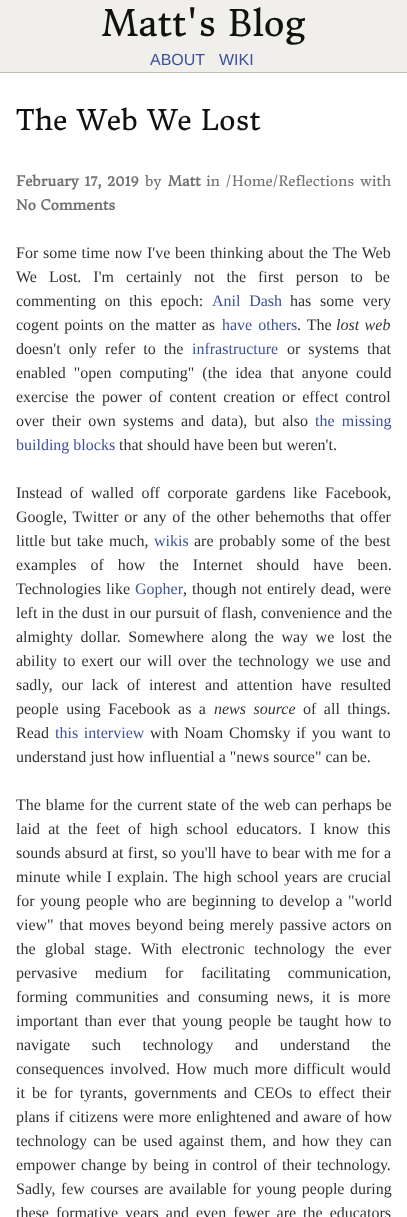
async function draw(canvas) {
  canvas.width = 407
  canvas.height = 1217
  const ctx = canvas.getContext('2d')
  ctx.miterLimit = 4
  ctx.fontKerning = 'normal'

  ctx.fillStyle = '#fff'
  ctx.fillRect(0, 0, 407, 1217)
  ctx.fillStyle = '#f1efec'
  ctx.fillRect(0, 0, 407, 72)
  ctx.font = '36px Donegal One'
  ctx.fillStyle = '#111'
  ctx.fillText('Matt\'s Blog', 102, 36)
  ctx.fillStyle = '#c4bcb3'
  ctx.fillRect(0, 72, 407, 1)
  ctx.font = '16px Liberation Sans'
  ctx.fillStyle = '#3d5199'
  ctx.fillText('ABOUT', 150, 65)
  ctx.fillText('WIKI', 219, 65)
  ctx.font = '28px Donegal One'
  ctx.fillStyle = '#111'
  ctx.fillText('The Web We Lost', 16, 130)
  ctx.wordSpacing = '1px'
  ctx.font = 'bold 14px Donegal One'
  ctx.fillStyle = '#737271'
  ctx.fillText('February 17, 2019', 16, 186)
  ctx.wordSpacing = '0px'
  ctx.font = '14px Donegal One'
  ctx.fillText('by', 145, 186)
  ctx.font = 'bold 14px Donegal One'
  ctx.fillText('Matt', 168, 186)
  ctx.wordSpacing = '1px'
  ctx.font = '14px Donegal One'
  ctx.fillText('in /', 206, 186)
  ctx.wordSpacing = '0px'
  ctx.fillText('Home/Reflections', 232, 186)
  ctx.fillText('with', 360, 186)
  ctx.font = 'bold 14px Donegal One'
  ctx.fillText('No Comments', 16, 210)
  ctx.wordSpacing = '0.75px'
  ctx.font = '16px Liberation Serif'
  ctx.fillStyle = '#333232'
  ctx.fillText('For some time now I\'ve been thinking about the The Web', 16, 258)
  ctx.wordSpacing = '8px'
  ctx.fillText('We Lost. I\'m certainly not the first person to be', 16, 282)
  ctx.wordSpacing = '4.5px'
  ctx.fillText('commenting on this epoch:', 16, 306)
  ctx.wordSpacing = '4.75px'
  ctx.fillStyle = '#3d5199'
  ctx.fillText('Anil Dash', 212, 306)
  ctx.fillStyle = '#333232'
  ctx.fillText('has some very', 290, 306)
  ctx.wordSpacing = '1.5px'
  ctx.fillText('cogent points on the matter as', 16, 330)
  ctx.wordSpacing = '2px'
  ctx.fillStyle = '#3d5199'
  ctx.fillText('have others', 222, 330)
  ctx.fillStyle = '#333232'
  ctx.fillText('. The', 297, 330)
  ctx.wordSpacing = '1.5px'
  ctx.font = 'italic 16px Liberation Serif'
  ctx.fillText('lost web', 336, 330)
  ctx.wordSpacing = '4px'
  ctx.font = '16px Liberation Serif'
  ctx.fillText('doesn\'t only refer to the', 16, 354)
  ctx.wordSpacing = '0px'
  ctx.fillStyle = '#3d5199'
  ctx.fillText('infrastructure', 192, 354)
  ctx.wordSpacing = '4px'
  ctx.fillStyle = '#333232'
  ctx.fillText('or systems that', 287, 354)
  ctx.fillText('enabled "open computing" (the idea that anyone could', 16, 378)
  ctx.wordSpacing = '3px'
  ctx.fillText('exercise the power of content creation or effect control', 16, 402)
  ctx.wordSpacing = '3.25px'
  ctx.fillText('over their own systems and data), but also', 16, 426)
  ctx.fillStyle = '#3d5199'
  ctx.fillText('the missing', 315, 426)
  ctx.wordSpacing = '0px'
  ctx.fillText('building blocks', 16, 450)
  ctx.fillStyle = '#333232'
  ctx.fillText('that should have been but weren\'t.', 119, 450)
  ctx.wordSpacing = '3.75px'
  ctx.fillText('Instead of walled off corporate gardens like Facebook,', 16, 498)
  ctx.wordSpacing = '1.75px'
  ctx.fillText('Google, Twitter or any of the other behemoths that offer', 16, 522)
  ctx.wordSpacing = '1.5px'
  ctx.fillText('little but take much,', 16, 546)
  ctx.wordSpacing = '0px'
  ctx.fillStyle = '#3d5199'
  ctx.fillText('wikis', 154, 546)
  ctx.wordSpacing = '1.5px'
  ctx.fillStyle = '#333232'
  ctx.fillText('are probably some of the best', 194, 546)
  ctx.wordSpacing = '10px'
  ctx.fillText('examples of how the Internet should have been.', 16, 570)
  ctx.wordSpacing = '1px'
  ctx.fillText('Technologies like', 16, 594)
  ctx.wordSpacing = '0px'
  ctx.fillStyle = '#3d5199'
  ctx.fillText('Gopher', 135, 594)
  ctx.wordSpacing = '1px'
  ctx.fillStyle = '#333232'
  ctx.fillText(', though not entirely dead, were', 183, 594)
  ctx.wordSpacing = '0.25px'
  ctx.fillText('left in the dust in our pursuit of flash, convenience and the', 16, 618)
  ctx.wordSpacing = '3.5px'
  ctx.fillText('almighty dollar. Somewhere along the way we lost the', 16, 642)
  ctx.wordSpacing = '2.1px'
  ctx.fillText('ability to exert our will over the technology we use and', 16, 666)
  ctx.wordSpacing = '4.75px'
  ctx.fillText('sadly, our lack of interest and attention have resulted', 16, 690)
  ctx.wordSpacing = '3.5px'
  ctx.fillText('people using Facebook as a', 16, 714)
  ctx.font = 'italic 16px Liberation Serif'
  ctx.fillText('news source', 214, 714)
  ctx.font = '16px Liberation Serif'
  ctx.fillText('of all things.', 303, 714)
  ctx.wordSpacing = '0px'
  ctx.fillText('Read', 16, 738)
  ctx.wordSpacing = '1.75px'
  ctx.fillStyle = '#3d5199'
  ctx.fillText('this interview', 55, 738)
  ctx.fillStyle = '#333232'
  ctx.fillText('with Noam Chomsky if you want to', 150, 738)
  ctx.wordSpacing = '0px'
  ctx.fillText('understand just how influential a "news source" can be.', 16, 762)
  ctx.wordSpacing = '0.75px'
  ctx.fillText('The blame for the current state of the web can perhaps be', 16, 810)
  ctx.wordSpacing = '4.25px'
  ctx.fillText('laid at the feet of high school educators. I know this', 16, 834)
  ctx.wordSpacing = '0.4px'
  ctx.fillText('sounds absurd at first, so you\'ll have to bear with me for a', 16, 858)
  ctx.wordSpacing = '1.25px'
  ctx.fillText('minute while I explain. The high school years are crucial', 16, 882)
  ctx.wordSpacing = '1.5px'
  ctx.fillText('for young people who are beginning to develop a "world', 16, 906)
  ctx.fillText('view" that moves beyond being merely passive actors on', 16, 930)
  ctx.wordSpacing = '5.5px'
  ctx.fillText('the global stage. With electronic technology the ever', 16, 954)
  ctx.wordSpacing = '13.5px'
  ctx.fillText('pervasive medium for facilitating communication,', 16, 978)
  ctx.wordSpacing = '4.25px'
  ctx.fillText('forming communities and consuming news, it is more', 16, 1002)
  ctx.wordSpacing = '2.25px'
  ctx.fillText('important than ever that young people be taught how to', 16, 1026)
  ctx.wordSpacing = '17.5px'
  ctx.fillText('navigate such technology and understand the', 16, 1050)
  ctx.wordSpacing = '2px'
  ctx.fillText('consequences involved. How much more difficult would', 16, 1074)
  ctx.wordSpacing = '3px'
  ctx.fillText('it be for tyrants, governments and', 16, 1098)
  ctx.wordSpacing = '0px'
  ctx.fillText('CEO', 254, 1098)
  ctx.wordSpacing = '3px'
  ctx.fillText('s to effect their', 286, 1098)
  ctx.wordSpacing = '0.75px'
  ctx.fillText('plans if citizens were more enlightened and aware of how', 16, 1122)
  ctx.wordSpacing = '2.25px'
  ctx.fillText('technology can be used against them, and how they can', 16, 1146)
  ctx.wordSpacing = '1.5px'
  ctx.fillText('empower change by being in control of their technology.', 16, 1170)
  ctx.fillText('Sadly, few courses are available for young people during', 16, 1194)
  ctx.wordSpacing = '3px'
  ctx.fillText('these formative years and even fewer are the educators', 16, 1218)
}

draw(document.querySelector('canvas'))
